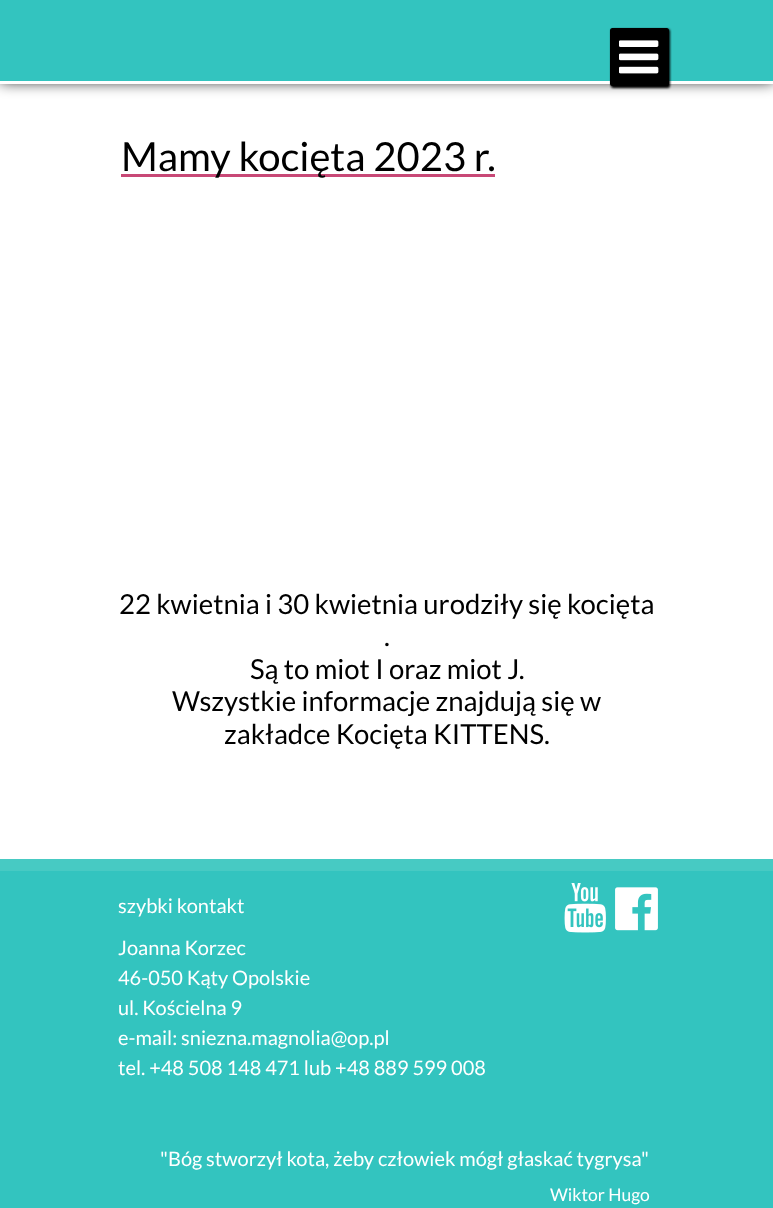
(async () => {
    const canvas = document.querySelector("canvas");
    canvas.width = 773;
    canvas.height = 1208;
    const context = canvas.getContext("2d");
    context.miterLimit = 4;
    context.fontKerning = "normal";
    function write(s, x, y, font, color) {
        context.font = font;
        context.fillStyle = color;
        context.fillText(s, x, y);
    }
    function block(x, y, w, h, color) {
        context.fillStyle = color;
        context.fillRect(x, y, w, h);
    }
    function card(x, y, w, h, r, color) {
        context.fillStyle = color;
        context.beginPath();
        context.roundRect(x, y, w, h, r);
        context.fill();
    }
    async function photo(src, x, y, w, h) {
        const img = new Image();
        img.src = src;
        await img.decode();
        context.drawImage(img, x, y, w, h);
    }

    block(0, 0, 773, 1208, "rgb(255, 255, 255)");
    context.fillStyle = "rgb(0, 0, 0)";
    context.filter = "blur(7.5px)";
    context.beginPath();
    context.rect(0, -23, 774, 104);
    context.fill();
    context.filter = "none";
    block(0, 81, 773, 3, "rgb(255, 255, 255)");
    block(0, 0, 773, 81, "rgb(51, 196, 191)");
    context.fillStyle = "rgb(0, 0, 0)";
    context.filter = "blur(1px)";
    context.beginPath();
    context.roundRect(611, 29, 59, 59, 2.5);
    context.fill();
    context.filter = "none";
    card(610, 28, 59, 58, 2.5, "rgb(0, 0, 0)");
    await photo("media/1.png", 619, 40, 40, 34);
    block(121, 174, 374, 3, "rgb(200, 72, 118)");
    write("Mamy kocięta 2023 r.", 121, 171, "40px Lato", "rgb(0, 0, 0)");
    write("22 kwietnia i 30 kwietnia urodziły się kocięta", 119, 614, "27.5px Lato", "rgb(0, 0, 0)");
    write(".", 384, 646, "27.5px Lato", "rgb(0, 0, 0)");
    write("Są to miot I oraz miot J.", 250, 679, "27.5px Lato", "rgb(0, 0, 0)");
    write("Wszystkie informacje znajdują się w", 172, 711, "27.5px Lato", "rgb(0, 0, 0)");
    write("zakładce Kocięta KITTENS.", 224, 744, "27.5px Lato", "rgb(0, 0, 0)");
    block(0, 871, 773, 337, "rgb(51, 196, 191)");
    block(0, 859, 773, 12, "rgb(71, 202, 195)");
    write("szybki kontakt", 118, 913, "20px Lato", "rgb(255, 255, 255)");
    write("Joanna Korzec", 118, 955, "20px Lato", "rgb(255, 255, 255)");
    write("46-050 Kąty Opolskie", 118, 985, "20px Lato", "rgb(255, 255, 255)");
    write("ul. Kościelna 9", 118, 1015, "20px Lato", "rgb(255, 255, 255)");
    write("e-mail: sniezna.magnolia@op.pl", 118, 1045, "20px Lato", "rgb(255, 255, 255)");
    write("tel. +48 508 148 471 lub +48 889 599 008", 118, 1075, "20px Lato", "rgb(255, 255, 255)");
    await photo("media/2.png", 564, 883, 42, 50);
    await photo("media/3.png", 615, 887, 43, 44);
    write("\"Bóg stworzył kota, żeby człowiek mógł głaskać tygrysa\"", 160, 1166, "20px Lato", "rgb(255, 255, 255)");
    write("Wiktor Hugo", 550, 1201, "17.5px Lato", "rgb(255, 255, 255)");
})();
